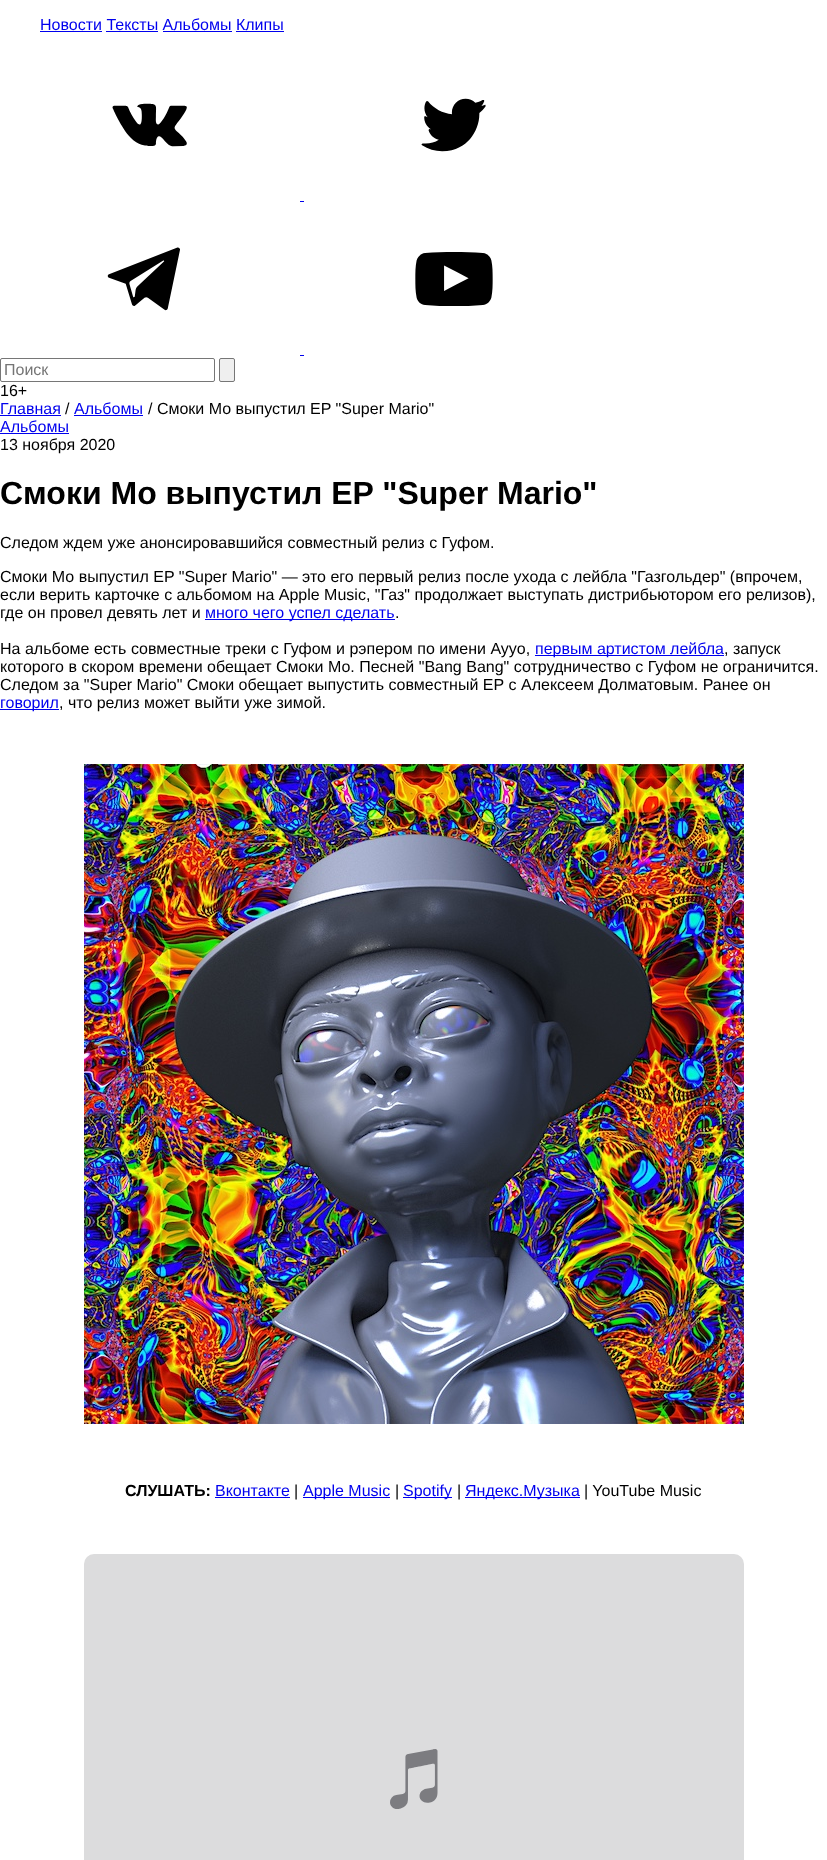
(async () => {
    const canvas = document.querySelector("canvas");
    canvas.width = 827;
    canvas.height = 1860;
    const context = canvas.getContext("2d");
    context.miterLimit = 4;
    context.fontKerning = "normal";
    function write(s, x, y, font, color) {
        context.font = font;
        context.fillStyle = color;
        context.fillText(s, x, y);
    }
    function block(x, y, w, h, color) {
        context.fillStyle = color;
        context.fillRect(x, y, w, h);
    }
    async function photo(src, x, y, w, h) {
        const img = new Image();
        img.src = src;
        await img.decode();
        context.drawImage(img, x, y, w, h);
    }

    block(0, 0, 827, 1860, "rgb(255, 255, 255)");
    write("Новости Тексты Альбомы Клипы", 40, 30, "16px Liberation Sans", "rgb(0, 0, 238)");
    block(40, 31, 62, 1, "rgb(0, 0, 238)");
    block(106, 31, 52, 1, "rgb(0, 0, 238)");
    block(163, 31, 69, 1, "rgb(0, 0, 238)");
    block(236, 31, 48, 1, "rgb(0, 0, 238)");
    await photo("media/1.png", 112, 103, 75, 44);
    await photo("media/2.png", 421, 98, 65, 54);
    block(300, 201, 4, 1, "rgb(0, 0, 238)");
    await photo("media/3.png", 107, 247, 73, 64);
    await photo("media/4.png", 415, 252, 78, 54);
    block(300, 355, 4, 1, "rgb(0, 0, 238)");
    context.beginPath();
    context.roundRect(0.5, 358.5, 214, 23, 1.5);
    context.strokeStyle = "rgb(118, 118, 118)";
    context.stroke();
    write("Поиск", 4, 375, "16px Liberation Sans", "rgb(117, 117, 117)");
    context.fillStyle = "rgb(239, 239, 239)";
    context.beginPath();
    context.roundRect(219.5, 358.5, 15, 23, 1.5);
    context.fill();
    context.stroke();
    write("16+", 0, 396, "16px Liberation Sans", "rgb(0, 0, 0)");
    write("Главная", 0, 414, "16px Liberation Sans", "rgb(0, 0, 238)");
    block(0, 415, 61, 1, "rgb(0, 0, 238)");
    write("/", 65, 414, "16px Liberation Sans", "rgb(0, 0, 0)");
    write("Альбомы", 74, 414, "16px Liberation Sans", "rgb(0, 0, 238)");
    block(74, 415, 69, 1, "rgb(0, 0, 238)");
    write("/ Смоки Мо выпустил EP \"Super Mario\"", 148, 414, "16px Liberation Sans", "rgb(0, 0, 0)");
    write("Альбомы", 0, 432, "16px Liberation Sans", "rgb(0, 0, 238)");
    block(0, 433, 69, 1, "rgb(0, 0, 238)");
    write("13 ноября 2020", 0, 450, "16px Liberation Sans", "rgb(0, 0, 0)");
    write("Смоки Мо выпустил EP \"Super Mario\"", 0, 504, "bold 32px Liberation Sans", "rgb(0, 0, 0)");
    write("Следом ждем уже анонсировавшийся совместный релиз с Гуфом.", 0, 548, "16px Liberation Sans", "rgb(0, 0, 0)");
    write("Смоки Мо выпустил EP \"Super Mario\" — это его первый релиз после ухода с лейбла \"Газгольдер\" (впрочем,", 0, 582, "16px Liberation Sans", "rgb(0, 0, 0)");
    write("если верить карточке с альбомом на Apple Music, \"Газ\" продолжает выступать дистрибьютором его релизов),", 0, 600, "16px Liberation Sans", "rgb(0, 0, 0)");
    write("где он провел девять лет и", 0, 618, "16px Liberation Sans", "rgb(0, 0, 0)");
    block(205, 619, 190, 1, "rgb(0, 0, 238)");
    write("много чего успел сделать", 205, 618, "16px Liberation Sans", "rgb(0, 0, 238)");
    write(".", 395, 618, "16px Liberation Sans", "rgb(0, 0, 0)");
    write("На альбоме есть совместные треки с Гуфом и рэпером по имени Ayyo,", 0, 654, "16px Liberation Sans", "rgb(0, 0, 0)");
    block(535, 655, 189, 1, "rgb(0, 0, 238)");
    write("первым артистом лейбла", 535, 654, "16px Liberation Sans", "rgb(0, 0, 238)");
    write(", запуск", 724, 654, "16px Liberation Sans", "rgb(0, 0, 0)");
    write("которого в скором времени обещает Смоки Мо. Песней \"Bang Bang\" сотрудничество с Гуфом не ограничится.", 0, 672, "16px Liberation Sans", "rgb(0, 0, 0)");
    write("Следом за \"Super Mario\" Смоки обещает выпустить совместный ЕР с Алексеем Долматовым. Ранее он", 0, 690, "16px Liberation Sans", "rgb(0, 0, 0)");
    block(0, 709, 59, 1, "rgb(0, 0, 238)");
    write("говорил", 0, 708, "16px Liberation Sans", "rgb(0, 0, 238)");
    write(", что релиз может выйти уже зимой.", 59, 708, "16px Liberation Sans", "rgb(0, 0, 0)");
    await photo("media/5.png", 84, 764, 660, 660);
    write("СЛУШАТЬ:", 125, 1496, "bold 16px Liberation Sans", "rgb(0, 0, 0)");
    write("Вконтакте", 215, 1496, "16px Liberation Sans", "rgb(0, 0, 238)");
    block(215, 1497, 75, 1, "rgb(0, 0, 238)");
    write("|", 294, 1496, "16px Liberation Sans", "rgb(0, 0, 0)");
    block(303, 1497, 87, 1, "rgb(0, 0, 238)");
    write("Apple Music", 303, 1496, "16px Liberation Sans", "rgb(0, 0, 238)");
    write("|", 395, 1496, "16px Liberation Sans", "rgb(0, 0, 0)");
    block(403, 1497, 49, 1, "rgb(0, 0, 238)");
    write("Spotify", 403, 1496, "16px Liberation Sans", "rgb(0, 0, 238)");
    write("|", 457, 1496, "16px Liberation Sans", "rgb(0, 0, 0)");
    block(465, 1497, 115, 1, "rgb(0, 0, 238)");
    write("Яндекс.Музыка", 465, 1496, "16px Liberation Sans", "rgb(0, 0, 238)");
    write("| YouTube Music", 584, 1496, "16px Liberation Sans", "rgb(0, 0, 0)");
    await photo("media/6.png", 84, 1554, 660, 306);
})();
